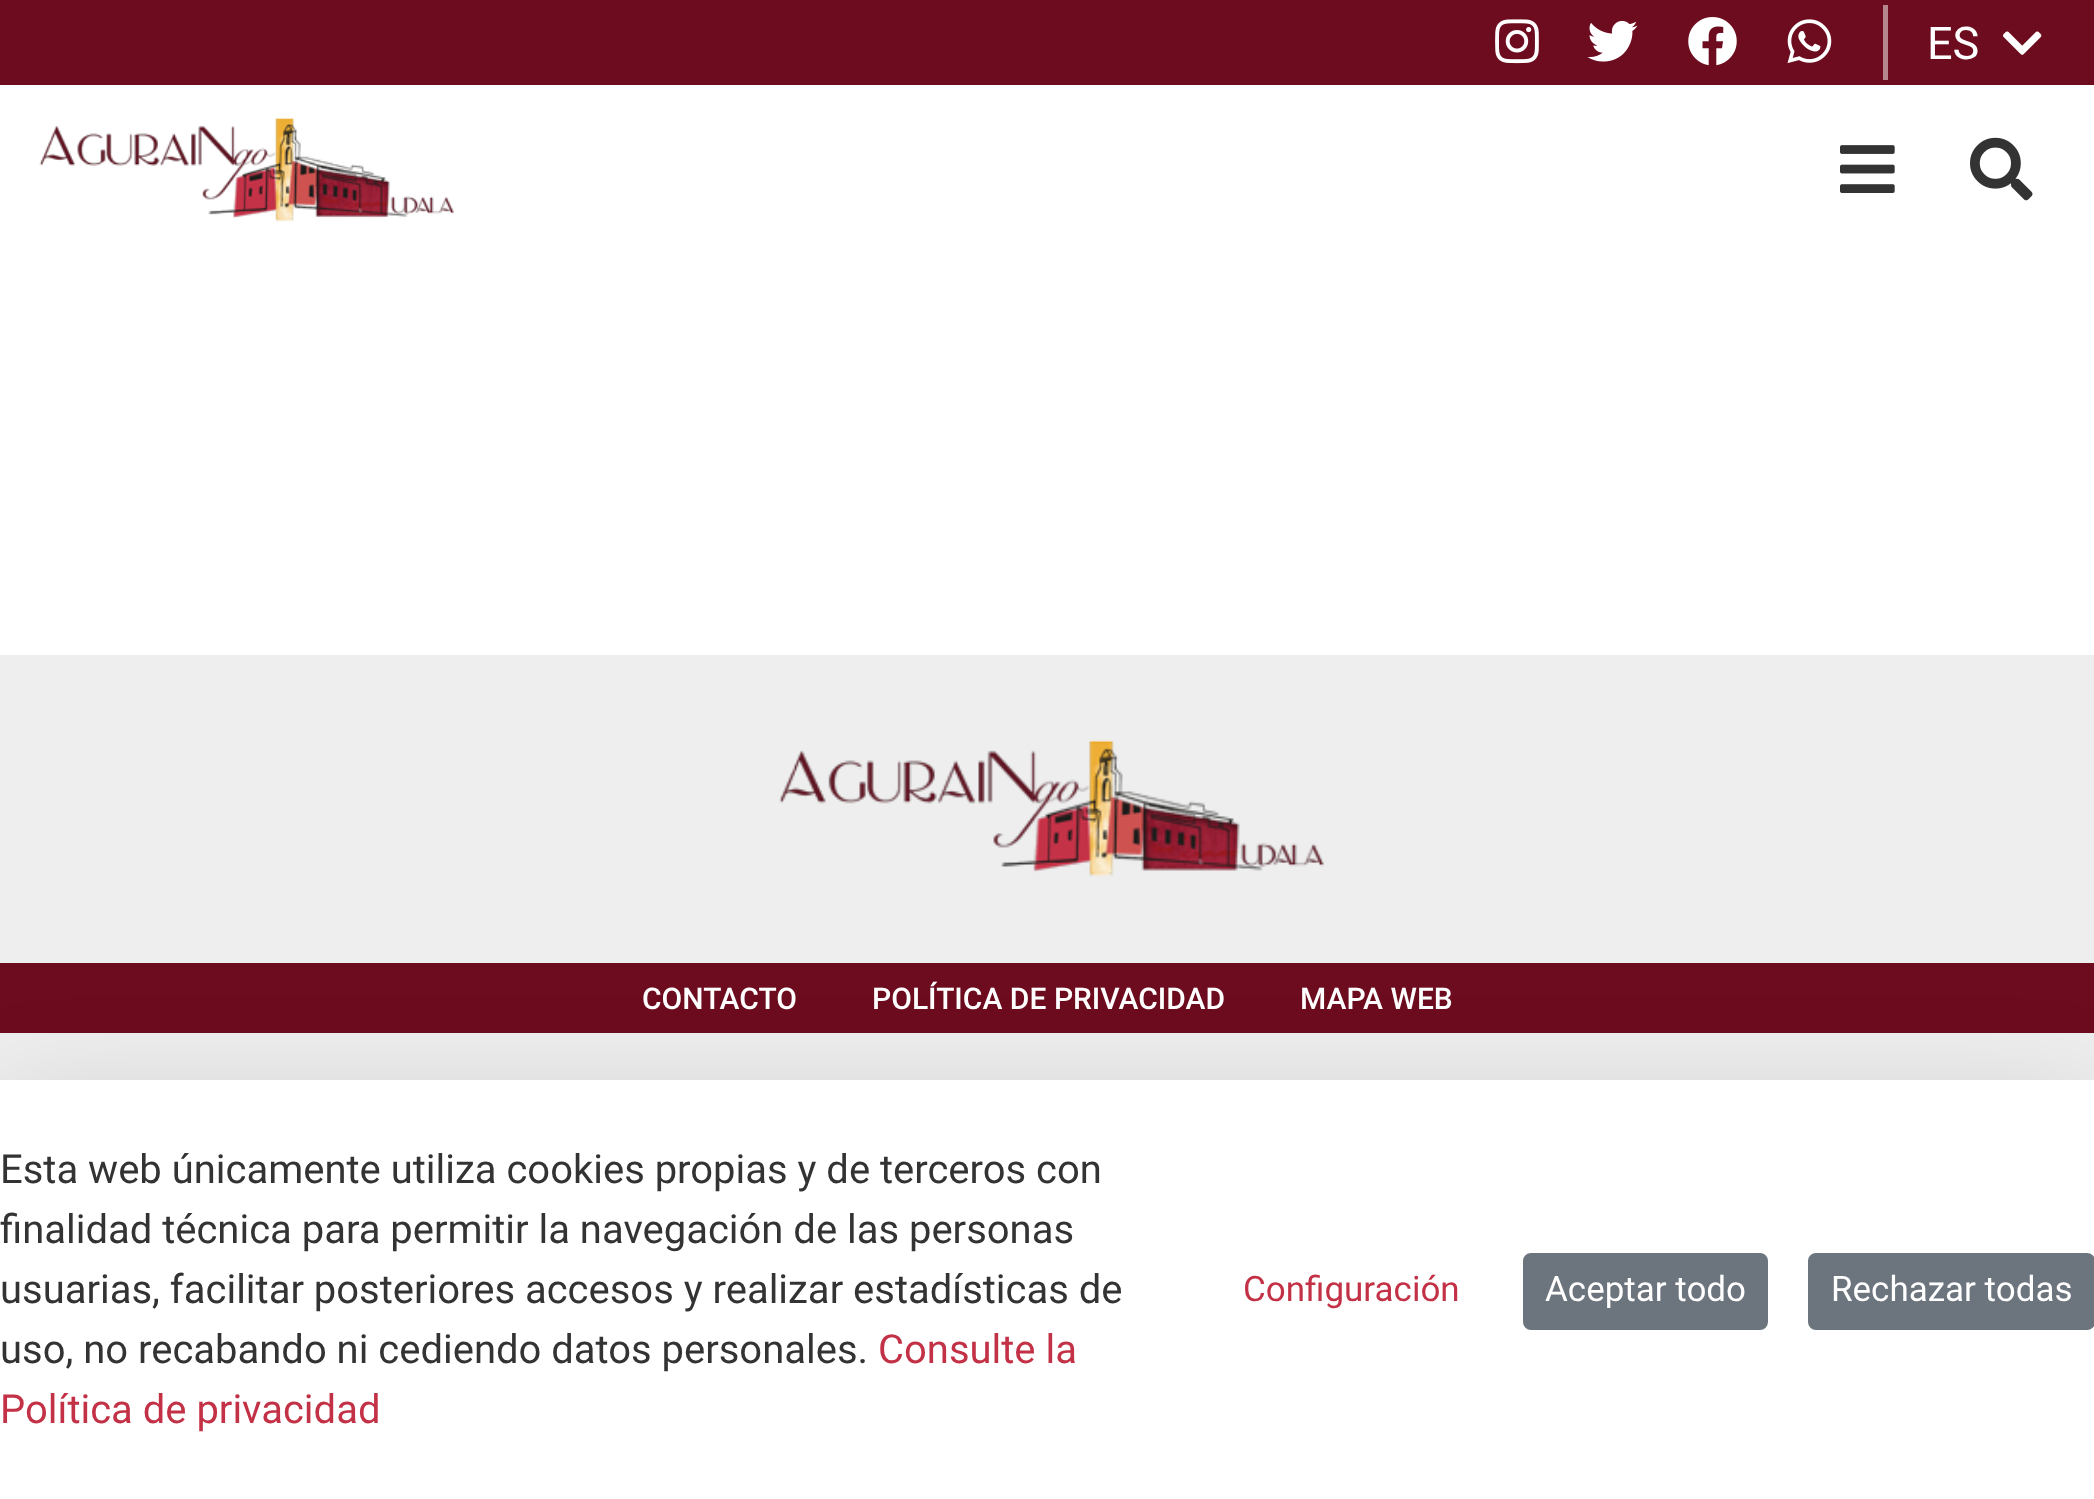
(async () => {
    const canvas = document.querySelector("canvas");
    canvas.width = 2094;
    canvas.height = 1499;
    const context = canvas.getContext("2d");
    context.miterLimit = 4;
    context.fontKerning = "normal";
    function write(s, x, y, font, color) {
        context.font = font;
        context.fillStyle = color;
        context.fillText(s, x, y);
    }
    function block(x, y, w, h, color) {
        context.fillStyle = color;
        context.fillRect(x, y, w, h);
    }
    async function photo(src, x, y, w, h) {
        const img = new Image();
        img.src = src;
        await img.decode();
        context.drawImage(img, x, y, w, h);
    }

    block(0, 0, 2094, 1499, "rgb(255, 255, 255)");
    block(0, 0, 2094, 85, "rgb(109, 12, 31)");
    block(1883, 5, 5, 75, "rgb(182, 134, 143)");
    await photo("media/1.png", 1495, 19, 44, 45);
    await photo("media/2.png", 1587, 20, 51, 42);
    await photo("media/3.png", 1688, 17, 49, 49);
    await photo("media/4.png", 1787, 19, 45, 45);
    write("ES", 1927, 59, "45px Roboto", "rgb(255, 255, 255)");
    await photo("media/5.png", 2003, 31, 39, 24);
    await photo("media/6.png", 39, 117, 415, 105);
    await photo("media/7.png", 1840, 145, 55, 48);
    await photo("media/8.png", 1970, 137, 63, 64);
    block(0, 655, 2094, 425, "rgb(238, 238, 238)");
    await photo("media/9.png", 779, 739, 545, 138);
    block(0, 963, 2094, 70, "rgb(109, 12, 31)");
    write("CONTACTO", 642, 1009, "500 30px Roboto", "rgb(255, 255, 255)");
    write("POLÍTICA DE PRIVACIDAD", 872, 1009, "500 30px Roboto", "rgb(255, 255, 255)");
    write("MAPA WEB", 1300, 1009, "500 30px Roboto", "rgb(255, 255, 255)");
    context.fillStyle = "rgba(0, 0, 0, 0.18)";
    context.filter = "blur(60px)";
    context.beginPath();
    context.rect(0, 1120, 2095, 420);
    context.fill();
    context.filter = "none";
    block(0, 1080, 2094, 419, "rgb(255, 255, 255)");
    write("Esta web únicamente utiliza cookies propias y de terceros con", 0, 1183, "40px Roboto", "rgb(51, 51, 51)");
    write("finalidad técnica para permitir la navegación de las personas", 0, 1243, "40px Roboto", "rgb(51, 51, 51)");
    write("usuarias, facilitar posteriores accesos y realizar estadísticas de", 0, 1303, "40px Roboto", "rgb(51, 51, 51)");
    write("uso, no recabando ni cediendo datos personales.", 0, 1363, "40px Roboto", "rgb(51, 51, 51)");
    write("Consulte la", 878, 1363, "40px Roboto", "rgb(195, 49, 70)");
    write("Política de privacidad", 0, 1423, "40px Roboto", "rgb(195, 49, 70)");
    write("Configuración", 1243, 1301, "35px Roboto", "rgb(195, 49, 70)");
    context.fillStyle = "rgb(108, 117, 125)";
    context.beginPath();
    context.roundRect(1524.5, 1254.5, 242, 74, 6.5);
    context.fill();
    context.strokeStyle = "rgb(108, 117, 125)";
    context.lineWidth = 3;
    context.stroke();
    write("Aceptar todo", 1545, 1301, "35px Roboto", "rgb(255, 255, 255)");
    context.fillStyle = "rgb(108, 117, 125)";
    context.beginPath();
    context.roundRect(1809.5, 1254.5, 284, 74, 6.5);
    context.fill();
    context.stroke();
    write("Rechazar todas", 1831, 1301, "35px Roboto", "rgb(255, 255, 255)");
})();
